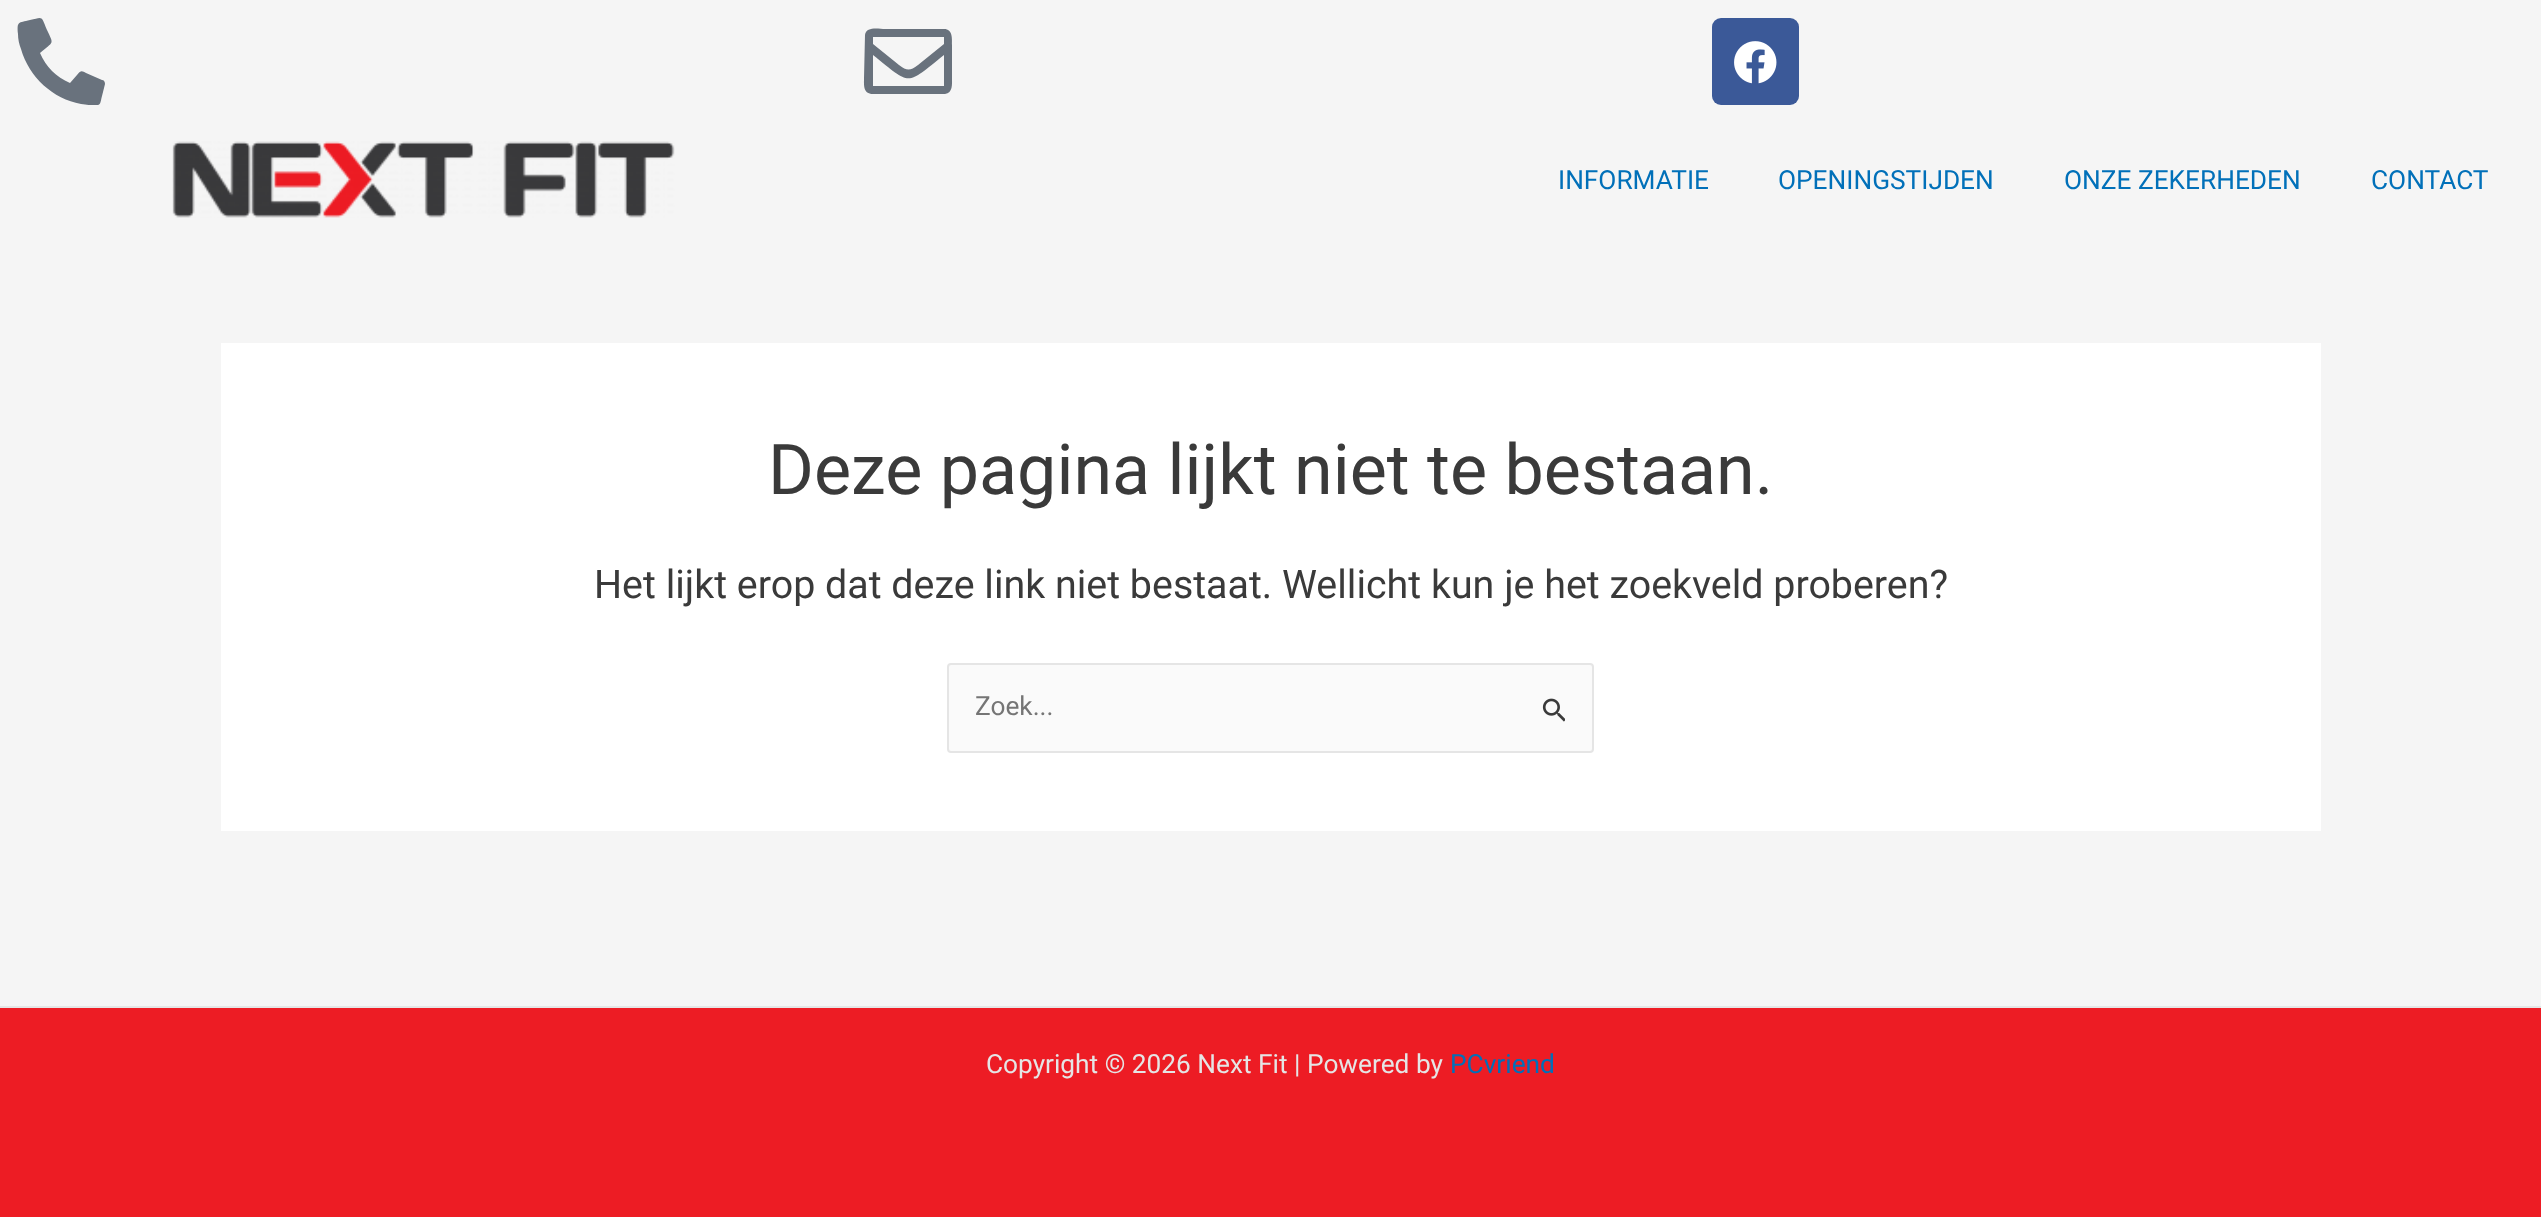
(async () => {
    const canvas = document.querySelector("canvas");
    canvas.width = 2541;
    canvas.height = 1217;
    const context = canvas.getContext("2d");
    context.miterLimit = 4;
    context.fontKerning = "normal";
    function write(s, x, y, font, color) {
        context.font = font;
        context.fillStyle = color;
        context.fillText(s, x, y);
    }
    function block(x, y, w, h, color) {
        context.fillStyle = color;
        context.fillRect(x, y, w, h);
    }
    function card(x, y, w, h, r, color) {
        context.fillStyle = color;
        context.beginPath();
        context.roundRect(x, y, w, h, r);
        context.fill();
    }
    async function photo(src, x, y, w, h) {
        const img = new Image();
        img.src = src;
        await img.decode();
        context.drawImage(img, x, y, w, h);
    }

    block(0, 0, 2541, 1217, "rgb(245, 245, 245)");
    context.fillStyle = "rgb(105, 114, 125)";
    context.beginPath();
    context.moveTo(102, 80);
    context.bezierCurveTo(104, 80, 105, 82, 105, 84);
    context.lineTo(102, 96);
    context.bezierCurveTo(101, 99, 101, 106, 97, 105);
    context.bezierCurveTo(90, 105, 87, 105, 81, 104);
    context.bezierCurveTo(53, 99, 29, 77, 21, 49);
    context.bezierCurveTo(19, 44, 18, 39, 18, 34);
    context.bezierCurveTo(17, 21, 18, 23, 30, 20);
    context.bezierCurveTo(43, 17, 41, 15, 47, 30);
    context.bezierCurveTo(54, 45, 54, 41, 40, 53);
    context.bezierCurveTo(46, 67, 56, 77, 70, 83);
    context.lineTo(77, 75);
    context.bezierCurveTo(81, 70, 82, 71, 86, 73);
    context.closePath();
    context.fill();
    context.beginPath();
    context.moveTo(944, 29);
    context.bezierCurveTo(953, 29, 952, 39, 952, 45);
    context.lineTo(952, 78);
    context.bezierCurveTo(952, 84, 953, 93, 945, 94);
    context.lineTo(873, 94);
    context.bezierCurveTo(863, 94, 864, 85, 864, 78);
    context.lineTo(865, 35);
    context.bezierCurveTo(866, 26, 879, 29, 885, 29);
    context.closePath();
    context.moveTo(944, 37);
    context.lineTo(873, 37);
    context.lineTo(873, 44);
    context.lineTo(899, 65);
    context.bezierCurveTo(907, 71, 910, 71, 918, 65);
    context.lineTo(944, 44);
    context.closePath();
    context.moveTo(873, 86);
    context.lineTo(944, 86);
    context.lineTo(944, 55);
    context.bezierCurveTo(905, 86, 912, 86, 873, 55);
    context.closePath();
    context.fill();
    card(1712, 18, 87, 87, 9, "rgb(59, 89, 152)");
    await photo("media/1.png", 1734, 41, 43, 43);
    await photo("media/2.png", 172, 141, 503, 77);
    write("INFORMATIE", 1558, 189, "26.25px Roboto", "rgb(1, 112, 185)");
    write("OPENINGSTIJDEN", 1778, 189, "26.25px Roboto", "rgb(1, 112, 185)");
    write("ONZE ZEKERHEDEN", 2064, 189, "26.25px Roboto", "rgb(1, 112, 185)");
    write("CONTACT", 2371, 189, "26.25px Roboto", "rgb(1, 112, 185)");
    block(221, 343, 2100, 488, "rgb(255, 255, 255)");
    write("Deze pagina lijkt niet te bestaan.", 768, 494, "70px Roboto", "rgb(58, 58, 58)");
    write("Het lijkt erop dat deze link niet bestaat. Wellicht kun je het zoekveld proberen?", 594, 598, "39.4px Roboto", "rgb(58, 58, 58)");
    context.fillStyle = "rgb(250, 250, 250)";
    context.beginPath();
    context.roundRect(948, 664, 645, 88, 3);
    context.fill();
    context.strokeStyle = "rgb(229, 229, 229)";
    context.lineWidth = 2;
    context.stroke();
    write("Zoek...", 975, 715, "26.25px Roboto", "rgb(117, 117, 117)");
    await photo("media/3.png", 1542, 698, 23, 24);
    block(0, 1008, 2541, 209, "rgb(237, 28, 36)");
    block(0, 1006, 2541, 2, "rgb(229, 229, 229)");
    write("Copyright © 2026 Next Fit | Powered by", 986, 1073, "26.25px Roboto", "rgb(229, 229, 229)");
    write("PCvriend", 1450, 1073, "26.25px Roboto", "rgb(1, 112, 185)");
})();
